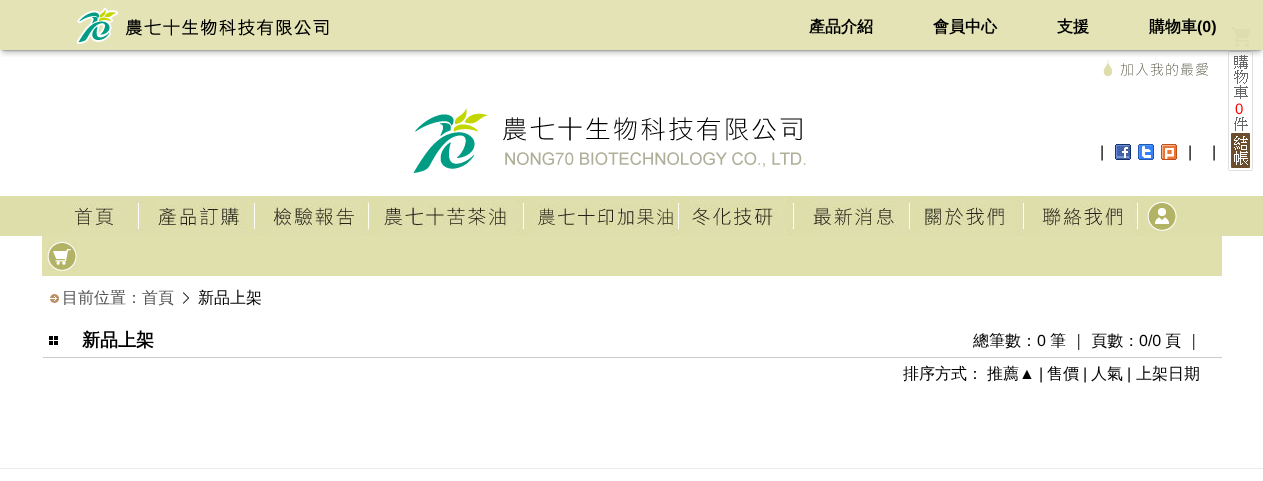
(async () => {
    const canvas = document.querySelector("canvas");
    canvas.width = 1263;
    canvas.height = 481;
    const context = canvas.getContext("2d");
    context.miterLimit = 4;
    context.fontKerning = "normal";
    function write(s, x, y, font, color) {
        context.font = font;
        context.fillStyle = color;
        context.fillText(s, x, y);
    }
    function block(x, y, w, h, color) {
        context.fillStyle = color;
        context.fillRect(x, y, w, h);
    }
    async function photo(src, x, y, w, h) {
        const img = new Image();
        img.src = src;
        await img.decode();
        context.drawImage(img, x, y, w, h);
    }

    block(0, 0, 1263, 481, "rgb(255, 255, 255)");
    block(0, 0, 1263, 50, "rgb(227, 227, 181)");
    await photo("media/2.png", 1228, 51, 25, 120);
    await photo("media/3.png", 1231, 27, 20, 20);
    await photo("media/4.png", 1234, 55, 14, 44);
    await photo("media/6.png", 1103, 59, 105, 18);
    context.save();
    context.beginPath();
    context.rect(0, 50, 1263, 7);
    context.clip();
    context.fillStyle = "rgba(51, 51, 51, 0.4)";
    context.filter = "blur(3px)";
    context.beginPath();
    context.rect(2, 6, 1259, 46);
    context.fill();
    context.filter = "none";
    context.restore();
    context.save();
    context.beginPath();
    context.rect(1, 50, 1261, 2);
    context.clip();
    context.fillStyle = "rgba(51, 51, 51, 0.6)";
    context.filter = "blur(1px)";
    context.beginPath();
    context.rect(2, 4, 1259, 46);
    context.fill();
    context.filter = "none";
    context.restore();
    await photo("media/1.png", 76, 7, 253, 37);
    write("產品介紹", 809, 32, "bold 16px WenQuanYi Zen Hei", "rgb(0, 0, 0)");
    write("會員中心", 933, 32, "bold 16px WenQuanYi Zen Hei", "rgb(0, 0, 0)");
    write("支援", 1057, 32, "bold 16px WenQuanYi Zen Hei", "rgb(0, 0, 0)");
    write("購物車", 1149, 32, "bold 16px WenQuanYi Zen Hei", "rgb(0, 0, 0)");
    write("(0)", 1197, 32, "bold 16px Liberation Sans", "rgb(0, 0, 0)");
    write("0", 1235, 114, "15px Liberation Sans", "rgb(255, 0, 0)");
    await photo("media/5.png", 1231, 133, 19, 35);
    block(0, 196, 1263, 40, "rgb(222, 222, 171)");
    await photo("media/7.png", 413, 108, 393, 65);
    write("|", 1100, 157, "16px Liberation Sans", "rgb(0, 0, 0)");
    await photo("media/8.png", 1115, 144, 16, 16);
    await photo("media/9.png", 1138, 144, 16, 16);
    await photo("media/10.png", 1161, 144, 16, 16);
    write("|", 1188, 157, "16px Liberation Sans", "rgb(0, 0, 0)");
    write("|", 1212, 157, "16px Liberation Sans", "rgb(0, 0, 0)");
    block(42, 236, 1180, 40, "rgb(224, 224, 173)");
    await photo("media/11.png", 70, 196, 72, 40);
    await photo("media/12.png", 158, 196, 99, 40);
    await photo("media/13.png", 273, 196, 96, 40);
    await photo("media/14.png", 380, 196, 144, 40);
    await photo("media/15.png", 535, 196, 144, 40);
    await photo("media/16.png", 690, 196, 104, 40);
    await photo("media/17.png", 813, 196, 99, 40);
    await photo("media/18.png", 920, 196, 104, 40);
    await photo("media/19.png", 1041, 196, 98, 40);
    await photo("media/20.png", 1147, 202, 30, 29);
    await photo("media/21.png", 47, 242, 30, 29);
    await photo("media/22.png", 50, 294, 9, 9);
    write("目前位置：首頁", 62, 303, "500 16px WenQuanYi Zen Hei", "rgb(85, 85, 85)");
    await photo("media/23.png", 183, 292, 6, 12);
    write("新品上架", 198, 303, "500 16px WenQuanYi Zen Hei", "rgb(0, 0, 0)");
    await photo("media/24.png", 43, 336, 1179, 22);
    write("新品上架", 82, 346, "bold 18px WenQuanYi Zen Hei", "rgb(0, 0, 0)");
    write("總筆數：", 973, 346, "500 16px WenQuanYi Zen Hei", "rgb(0, 0, 0)");
    write("0", 1037, 346, "16px Liberation Sans", "rgb(0, 0, 0)");
    write("筆 ｜ 頁數：", 1050, 346, "500 16px WenQuanYi Zen Hei", "rgb(0, 0, 0)");
    write("0/0", 1139, 346, "16px Liberation Sans", "rgb(0, 0, 0)");
    write("頁 ｜", 1165, 346, "500 16px WenQuanYi Zen Hei", "rgb(0, 0, 0)");
    write("排序方式：", 903, 379, "500 16px WenQuanYi Zen Hei", "rgb(0, 0, 0)");
    write("推薦", 987, 379, "500 16px WenQuanYi Zen Hei", "rgb(0, 0, 0)");
    write("▲", 1019, 379, "16px Liberation Sans", "rgb(0, 0, 0)");
    write("|", 1039, 379, "16px Liberation Sans", "rgb(0, 0, 0)");
    write("售價", 1047, 379, "500 16px WenQuanYi Zen Hei", "rgb(0, 0, 0)");
    write("|", 1083, 379, "16px Liberation Sans", "rgb(0, 0, 0)");
    write("人氣", 1091, 379, "500 16px WenQuanYi Zen Hei", "rgb(0, 0, 0)");
    write("|", 1127, 379, "16px Liberation Sans", "rgb(0, 0, 0)");
    write("上架日期", 1136, 379, "500 16px WenQuanYi Zen Hei", "rgb(0, 0, 0)");
    block(0, 468, 1263, 1, "rgb(235, 235, 235)");
})();
